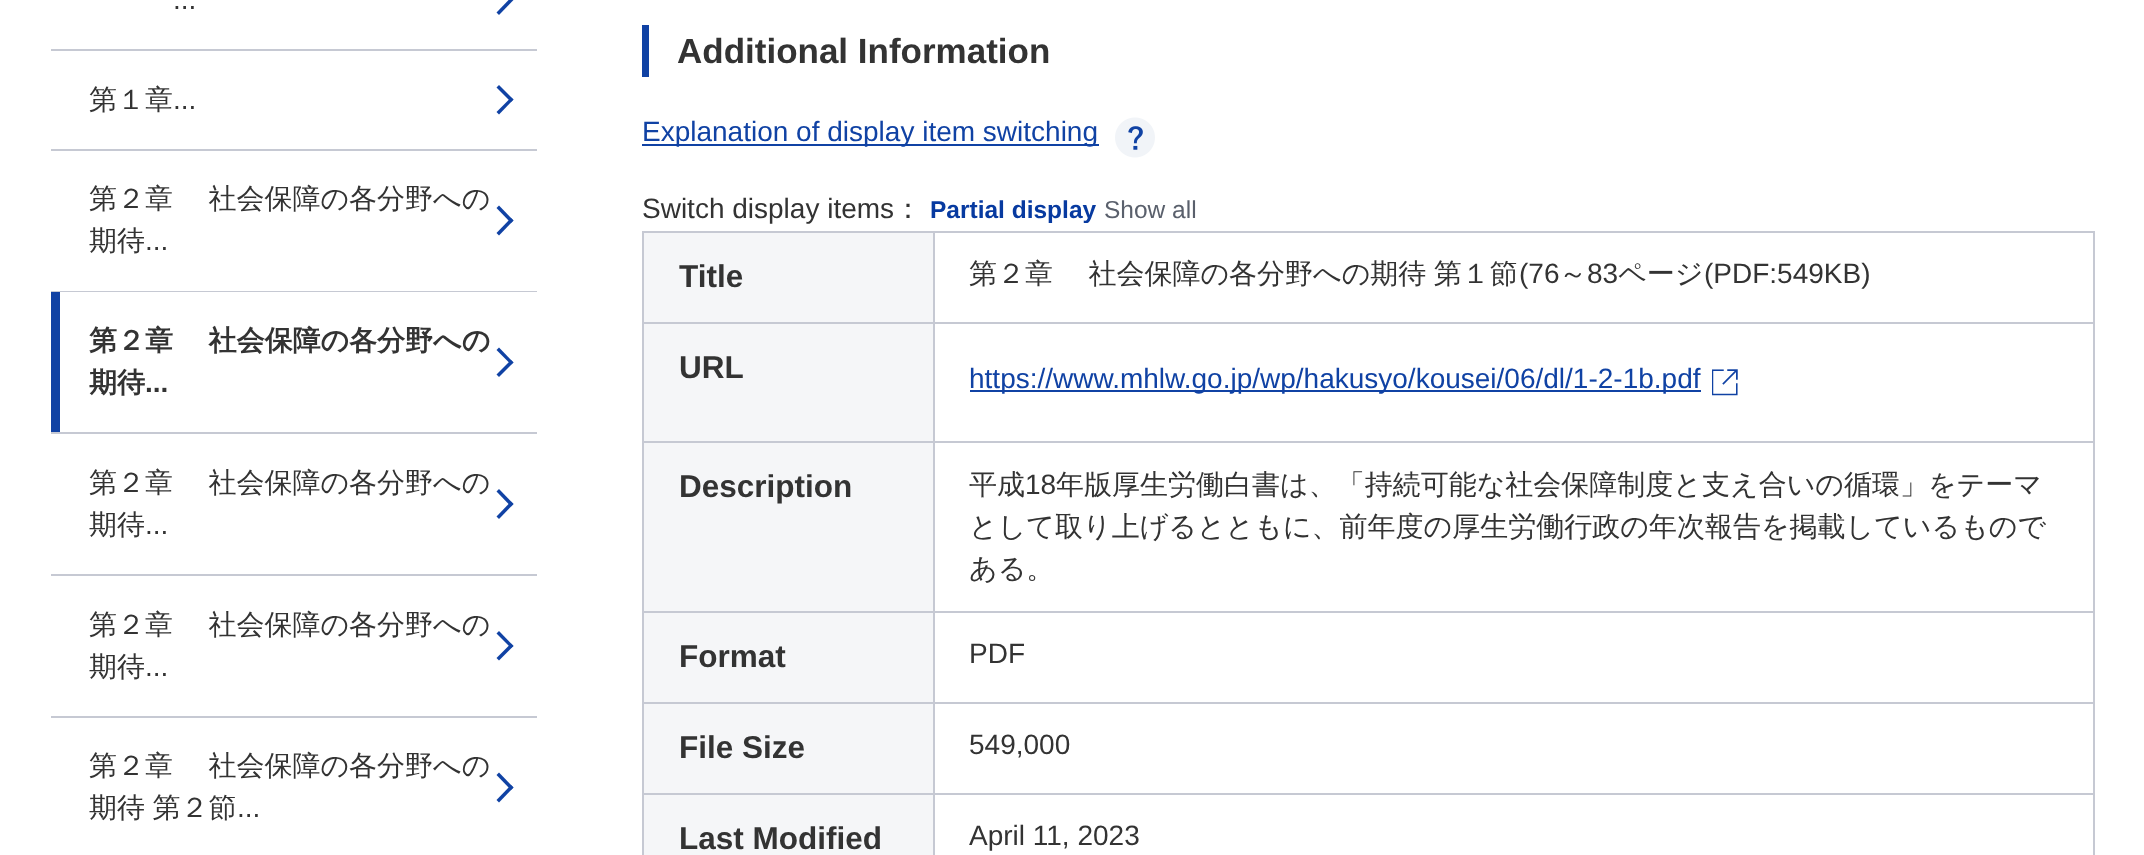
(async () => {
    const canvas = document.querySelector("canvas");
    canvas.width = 2144;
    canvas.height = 855;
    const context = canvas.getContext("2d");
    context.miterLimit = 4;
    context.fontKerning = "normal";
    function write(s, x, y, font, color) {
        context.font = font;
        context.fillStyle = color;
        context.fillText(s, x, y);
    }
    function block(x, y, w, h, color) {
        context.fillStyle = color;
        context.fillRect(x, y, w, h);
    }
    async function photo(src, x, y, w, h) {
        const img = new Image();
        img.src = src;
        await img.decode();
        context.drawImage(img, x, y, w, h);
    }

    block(0, 0, 2144, 855, "rgb(255, 255, 255)");
    block(51, 49, 486, 2, "rgb(198, 201, 211)");
    write("...", 173, 9, "28px Liberation Sans", "rgb(51, 51, 51)");
    context.fillStyle = "rgb(16, 66, 164)";
    context.beginPath();
    context.moveTo(496.5, 12.5);
    context.lineTo(511, -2.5);
    context.lineTo(513.5, 0);
    context.lineTo(499, 15);
    context.closePath();
    context.fill();
    block(51, 149, 486, 2, "rgb(198, 201, 211)");
    write("第１章", 89, 109, "500 28px WenQuanYi Zen Hei", "rgb(51, 51, 51)");
    write("...", 173, 109, "28px Liberation Sans", "rgb(51, 51, 51)");
    context.fillStyle = "rgb(16, 66, 164)";
    context.beginPath();
    context.moveTo(496.5, 87.5);
    context.lineTo(499, 85);
    context.lineTo(513.5, 99.5);
    context.lineTo(511, 102);
    context.closePath();
    context.fill();
    context.beginPath();
    context.moveTo(496.5, 112);
    context.lineTo(511, 97.5);
    context.lineTo(513.5, 99.5);
    context.lineTo(499, 114.5);
    context.closePath();
    context.fill();
    block(51, 291, 486, 1, "rgb(198, 201, 211)");
    context.wordSpacing = "-1px";
    write("第２章 　社会保障の各分野への", 89, 208, "500 28px WenQuanYi Zen Hei", "rgb(51, 51, 51)");
    context.fillStyle = "rgb(16, 66, 164)";
    context.beginPath();
    context.moveTo(496.5, 208);
    context.lineTo(499, 205.5);
    context.lineTo(513.5, 220.5);
    context.lineTo(511, 223);
    context.closePath();
    context.fill();
    context.beginPath();
    context.moveTo(496.5, 233);
    context.lineTo(511, 218);
    context.lineTo(513.5, 220.5);
    context.lineTo(499, 235.5);
    context.closePath();
    context.fill();
    context.wordSpacing = "0px";
    write("期待", 89, 250, "500 28px WenQuanYi Zen Hei", "rgb(51, 51, 51)");
    write("...", 145, 250, "28px Liberation Sans", "rgb(51, 51, 51)");
    block(51, 432, 486, 2, "rgb(198, 201, 211)");
    block(51, 292, 9, 140, "rgb(16, 66, 164)");
    context.wordSpacing = "-1px";
    write("第２章 　社会保障の各分野への", 89, 350, "bold 28px WenQuanYi Zen Hei", "rgb(51, 51, 51)");
    context.fillStyle = "rgb(16, 66, 164)";
    context.beginPath();
    context.moveTo(496.5, 350);
    context.lineTo(499, 347.5);
    context.lineTo(513.5, 362.5);
    context.lineTo(511, 364.5);
    context.closePath();
    context.fill();
    context.beginPath();
    context.moveTo(496.5, 374.5);
    context.lineTo(511, 360);
    context.lineTo(513.5, 362.5);
    context.lineTo(499, 377);
    context.closePath();
    context.fill();
    context.wordSpacing = "0px";
    write("期待", 89, 392, "bold 28px WenQuanYi Zen Hei", "rgb(51, 51, 51)");
    write("...", 145, 392, "bold 28px Liberation Sans", "rgb(51, 51, 51)");
    block(51, 574, 486, 2, "rgb(198, 201, 211)");
    context.wordSpacing = "-1px";
    write("第２章 　社会保障の各分野への", 89, 492, "500 28px WenQuanYi Zen Hei", "rgb(51, 51, 51)");
    context.fillStyle = "rgb(16, 66, 164)";
    context.beginPath();
    context.moveTo(496.5, 491.5);
    context.lineTo(499, 489);
    context.lineTo(513.5, 504);
    context.lineTo(511, 506.5);
    context.closePath();
    context.fill();
    context.beginPath();
    context.moveTo(496.5, 516.5);
    context.lineTo(511, 501.5);
    context.lineTo(513.5, 504);
    context.lineTo(499, 519);
    context.closePath();
    context.fill();
    context.wordSpacing = "0px";
    write("期待", 89, 534, "500 28px WenQuanYi Zen Hei", "rgb(51, 51, 51)");
    write("...", 145, 534, "28px Liberation Sans", "rgb(51, 51, 51)");
    block(51, 716, 486, 2, "rgb(198, 201, 211)");
    context.wordSpacing = "-1px";
    write("第２章 　社会保障の各分野への", 89, 634, "500 28px WenQuanYi Zen Hei", "rgb(51, 51, 51)");
    context.fillStyle = "rgb(16, 66, 164)";
    context.beginPath();
    context.moveTo(496.5, 633.5);
    context.lineTo(499, 631);
    context.lineTo(513.5, 646);
    context.lineTo(511, 648);
    context.closePath();
    context.fill();
    context.beginPath();
    context.moveTo(496.5, 658);
    context.lineTo(511, 643.5);
    context.lineTo(513.5, 646);
    context.lineTo(499, 660.5);
    context.closePath();
    context.fill();
    context.wordSpacing = "0px";
    write("期待", 89, 676, "500 28px WenQuanYi Zen Hei", "rgb(51, 51, 51)");
    write("...", 145, 676, "28px Liberation Sans", "rgb(51, 51, 51)");
    context.wordSpacing = "-1px";
    write("第２章 　社会保障の各分野への", 89, 775, "500 28px WenQuanYi Zen Hei", "rgb(51, 51, 51)");
    context.fillStyle = "rgb(16, 66, 164)";
    context.beginPath();
    context.moveTo(496.5, 775);
    context.lineTo(499, 772.5);
    context.lineTo(513.5, 787.5);
    context.lineTo(511, 790);
    context.closePath();
    context.fill();
    context.beginPath();
    context.moveTo(496.5, 800);
    context.lineTo(511, 785);
    context.lineTo(513.5, 787.5);
    context.lineTo(499, 802.5);
    context.closePath();
    context.fill();
    write("期待 第２節", 89, 817, "500 28px WenQuanYi Zen Hei", "rgb(51, 51, 51)");
    context.wordSpacing = "0px";
    write("...", 237, 817, "28px Liberation Sans", "rgb(51, 51, 51)");
    block(642, 25, 7, 52, "rgb(16, 66, 164)");
    write("Additional Information", 677, 63, "bold 35px Liberation Sans", "rgb(51, 51, 51)");
    block(642, 144, 457, 2, "rgb(16, 66, 164)");
    write("Explanation of display item switching", 642, 141, "28px Liberation Sans", "rgb(16, 66, 164)");
    await photo("media/1.png", 1115, 117, 40, 41);
    write("Switch display items", 642, 218, "28px Liberation Sans", "rgb(51, 51, 51)");
    write("：", 894, 218, "500 28px WenQuanYi Zen Hei", "rgb(51, 51, 51)");
    write("Partial display", 930, 218, "bold 24.5px Liberation Sans", "rgb(7, 58, 160)");
    write("Show all", 1104, 218, "24.5px Liberation Sans", "rgb(90, 96, 108)");
    block(644, 233, 289, 89, "rgb(245, 246, 248)");
    block(933, 231, 1162, 2, "rgb(198, 201, 211)");
    block(933, 322, 1162, 2, "rgb(198, 201, 211)");
    block(933, 441, 1162, 2, "rgb(198, 201, 211)");
    block(933, 611, 1162, 2, "rgb(198, 201, 211)");
    block(933, 702, 1162, 2, "rgb(198, 201, 211)");
    block(933, 793, 1162, 2, "rgb(198, 201, 211)");
    block(933, 793, 2, 62, "rgb(198, 201, 211)");
    block(642, 793, 293, 2, "rgb(198, 201, 211)");
    block(933, 702, 2, 93, "rgb(198, 201, 211)");
    block(642, 702, 293, 2, "rgb(198, 201, 211)");
    block(933, 611, 2, 93, "rgb(198, 201, 211)");
    block(642, 611, 293, 2, "rgb(198, 201, 211)");
    block(933, 441, 2, 172, "rgb(198, 201, 211)");
    block(642, 441, 293, 2, "rgb(198, 201, 211)");
    block(933, 322, 2, 121, "rgb(198, 201, 211)");
    block(642, 322, 293, 2, "rgb(198, 201, 211)");
    block(933, 231, 2, 93, "rgb(198, 201, 211)");
    block(642, 231, 293, 2, "rgb(198, 201, 211)");
    block(642, 793, 2, 62, "rgb(198, 201, 211)");
    block(642, 702, 2, 93, "rgb(198, 201, 211)");
    block(642, 611, 2, 93, "rgb(198, 201, 211)");
    block(642, 441, 2, 172, "rgb(198, 201, 211)");
    block(642, 322, 2, 121, "rgb(198, 201, 211)");
    block(642, 231, 2, 93, "rgb(198, 201, 211)");
    write("Title", 679, 287, "bold 31.5px Liberation Sans", "rgb(51, 51, 51)");
    block(2093, 793, 2, 62, "rgb(198, 201, 211)");
    block(2093, 702, 2, 93, "rgb(198, 201, 211)");
    block(2093, 611, 2, 93, "rgb(198, 201, 211)");
    block(2093, 441, 2, 172, "rgb(198, 201, 211)");
    block(2093, 322, 2, 121, "rgb(198, 201, 211)");
    block(2093, 231, 2, 93, "rgb(198, 201, 211)");
    context.wordSpacing = "-1px";
    write("第２章 　社会保障の各分野への期待 第１節", 969, 283, "500 28px WenQuanYi Zen Hei", "rgb(51, 51, 51)");
    context.wordSpacing = "0px";
    write("(76", 1519, 283, "28px Liberation Sans", "rgb(51, 51, 51)");
    write("～", 1559, 283, "500 28px WenQuanYi Zen Hei", "rgb(51, 51, 51)");
    write("83", 1587, 283, "28px Liberation Sans", "rgb(51, 51, 51)");
    write("ページ", 1618, 283, "500 28px WenQuanYi Zen Hei", "rgb(51, 51, 51)");
    write("(PDF:549KB)", 1704, 283, "28px Liberation Sans", "rgb(51, 51, 51)");
    block(644, 324, 289, 117, "rgb(245, 246, 248)");
    write("URL", 679, 378, "bold 31.5px Liberation Sans", "rgb(51, 51, 51)");
    block(970, 390, 731, 2, "rgb(16, 66, 164)");
    write("https://www.mhlw.go.jp/wp/hakusyo/kousei/06/dl/1-2-1b.pdf", 969, 388, "28px Liberation Sans", "rgb(16, 66, 164)");
    await photo("media/2.png", 1712, 369, 26, 27);
    block(644, 443, 289, 168, "rgb(245, 246, 248)");
    write("Description", 679, 497, "bold 31.5px Liberation Sans", "rgb(51, 51, 51)");
    write("平成", 969, 494, "500 28px WenQuanYi Zen Hei", "rgb(51, 51, 51)");
    write("18", 1025, 494, "28px Liberation Sans", "rgb(51, 51, 51)");
    write("年版厚生労働白書は、「持続可能な社会保障制度と支え合いの循環」をテーマ", 1056, 494, "500 28px WenQuanYi Zen Hei", "rgb(51, 51, 51)");
    write("として取り上げるとともに、前年度の厚生労働行政の年次報告を掲載しているもので", 969, 536, "500 28px WenQuanYi Zen Hei", "rgb(51, 51, 51)");
    write("ある。", 969, 578, "500 28px WenQuanYi Zen Hei", "rgb(51, 51, 51)");
    block(644, 613, 289, 89, "rgb(245, 246, 248)");
    write("Format", 679, 667, "bold 31.5px Liberation Sans", "rgb(51, 51, 51)");
    write("PDF", 969, 663, "28px Liberation Sans", "rgb(51, 51, 51)");
    block(644, 704, 289, 89, "rgb(245, 246, 248)");
    write("File Size", 679, 758, "bold 31.5px Liberation Sans", "rgb(51, 51, 51)");
    write("549,000", 969, 754, "28px Liberation Sans", "rgb(51, 51, 51)");
    block(644, 795, 289, 60, "rgb(245, 246, 248)");
    write("Last Modified", 679, 849, "bold 31.5px Liberation Sans", "rgb(51, 51, 51)");
    write("April 11, 2023", 969, 845, "28px Liberation Sans", "rgb(51, 51, 51)");
})();
